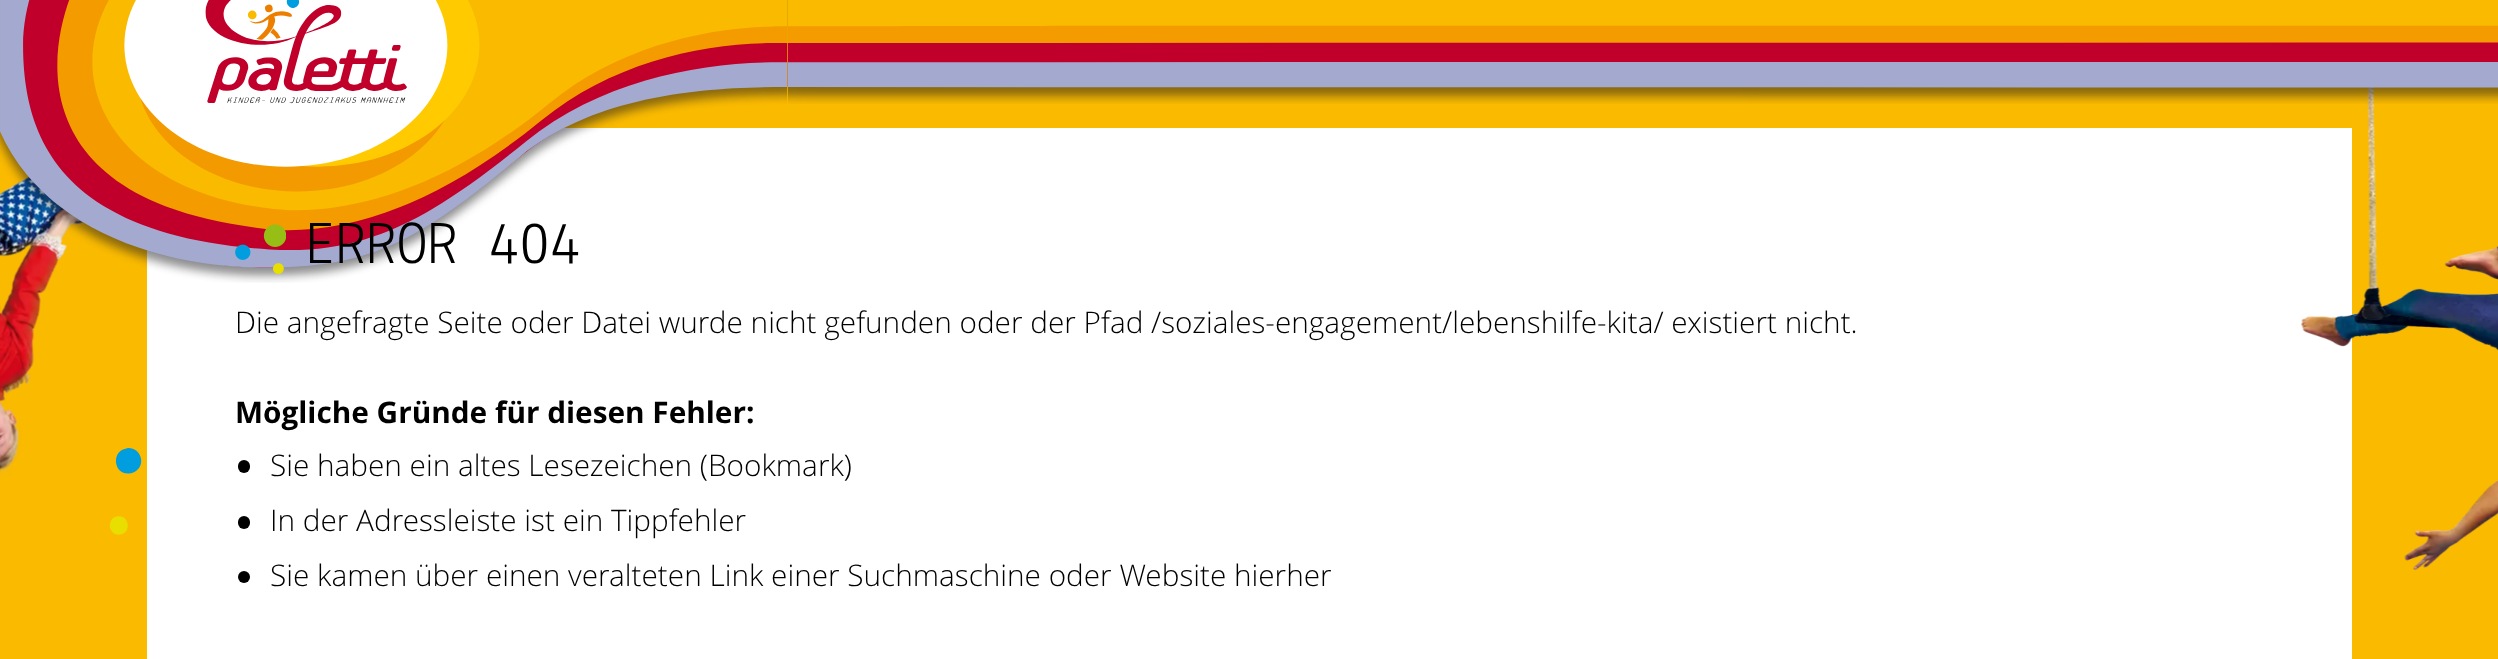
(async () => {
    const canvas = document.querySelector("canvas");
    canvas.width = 2498;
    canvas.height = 659;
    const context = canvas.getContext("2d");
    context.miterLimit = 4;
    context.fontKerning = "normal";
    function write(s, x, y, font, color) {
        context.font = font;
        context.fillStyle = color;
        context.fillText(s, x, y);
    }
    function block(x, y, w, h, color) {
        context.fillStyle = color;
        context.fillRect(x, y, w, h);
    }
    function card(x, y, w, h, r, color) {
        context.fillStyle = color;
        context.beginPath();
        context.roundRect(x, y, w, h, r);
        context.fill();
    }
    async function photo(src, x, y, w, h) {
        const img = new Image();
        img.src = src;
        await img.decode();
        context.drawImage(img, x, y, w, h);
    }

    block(0, 0, 2498, 659, "rgb(250, 186, 0)");
    block(147, 128, 2205, 531, "rgb(255, 255, 255)");
    await photo("media/3.png", 0, 176, 84, 300);
    await photo("media/1.png", 0, 0, 788, 283);
    await photo("media/5.png", 2300, 87, 198, 483);
    await photo("media/2.png", 788, 23, 1710, 81);
    context.fillStyle = "rgb(0, 157, 223)";
    context.beginPath();
    context.moveTo(128, 448);
    context.bezierCurveTo(140, 447.5, 146.5, 463.5, 136, 471);
    context.bezierCurveTo(134, 472.5, 131.5, 473.5, 129, 473.5);
    context.bezierCurveTo(114.5, 474.5, 111.5, 454.5, 123, 449.5);
    context.closePath();
    context.fill();
    context.fillStyle = "rgb(232, 223, 0)";
    context.beginPath();
    context.moveTo(116.5, 516.5);
    context.bezierCurveTo(105.5, 519.5, 109, 536.5, 120.5, 534.5);
    context.bezierCurveTo(132.5, 532, 128.5, 513.5, 116.5, 516.5);
    context.fill();
    await photo("media/4.png", 235, 224, 51, 50);
    write("ERROR 404", 305, 263, "61.25px Lekton", "rgb(0, 0, 0)");
    write("Die angefragte Seite oder Datei wurde nicht gefunden oder der Pfad /soziales-engagement/lebenshilfe-kita/ existiert nicht.", 235, 333, "300 29.75px Open Sans", "rgb(0, 0, 0)");
    write("Mögliche Gründe für diesen Fehler:", 235, 423, "bold 29.75px Open Sans", "rgb(0, 0, 0)");
    card(238, 460, 12, 13, 6, "rgb(0, 0, 0)");
    write("Sie haben ein altes Lesezeichen (Bookmark)", 270, 476, "300 29.75px Open Sans", "rgb(0, 0, 0)");
    card(238, 516, 12, 13, 6, "rgb(0, 0, 0)");
    write("In der Adressleiste ist ein Tippfehler", 270, 531, "300 29.75px Open Sans", "rgb(0, 0, 0)");
    context.beginPath();
    context.arc(244, 577, 6, 0, Math.PI * 2);
    context.fill();
    write("Sie kamen über einen veralteten Link einer Suchmaschine oder Website hierher", 270, 586, "300 29.75px Open Sans", "rgb(0, 0, 0)");
})();
